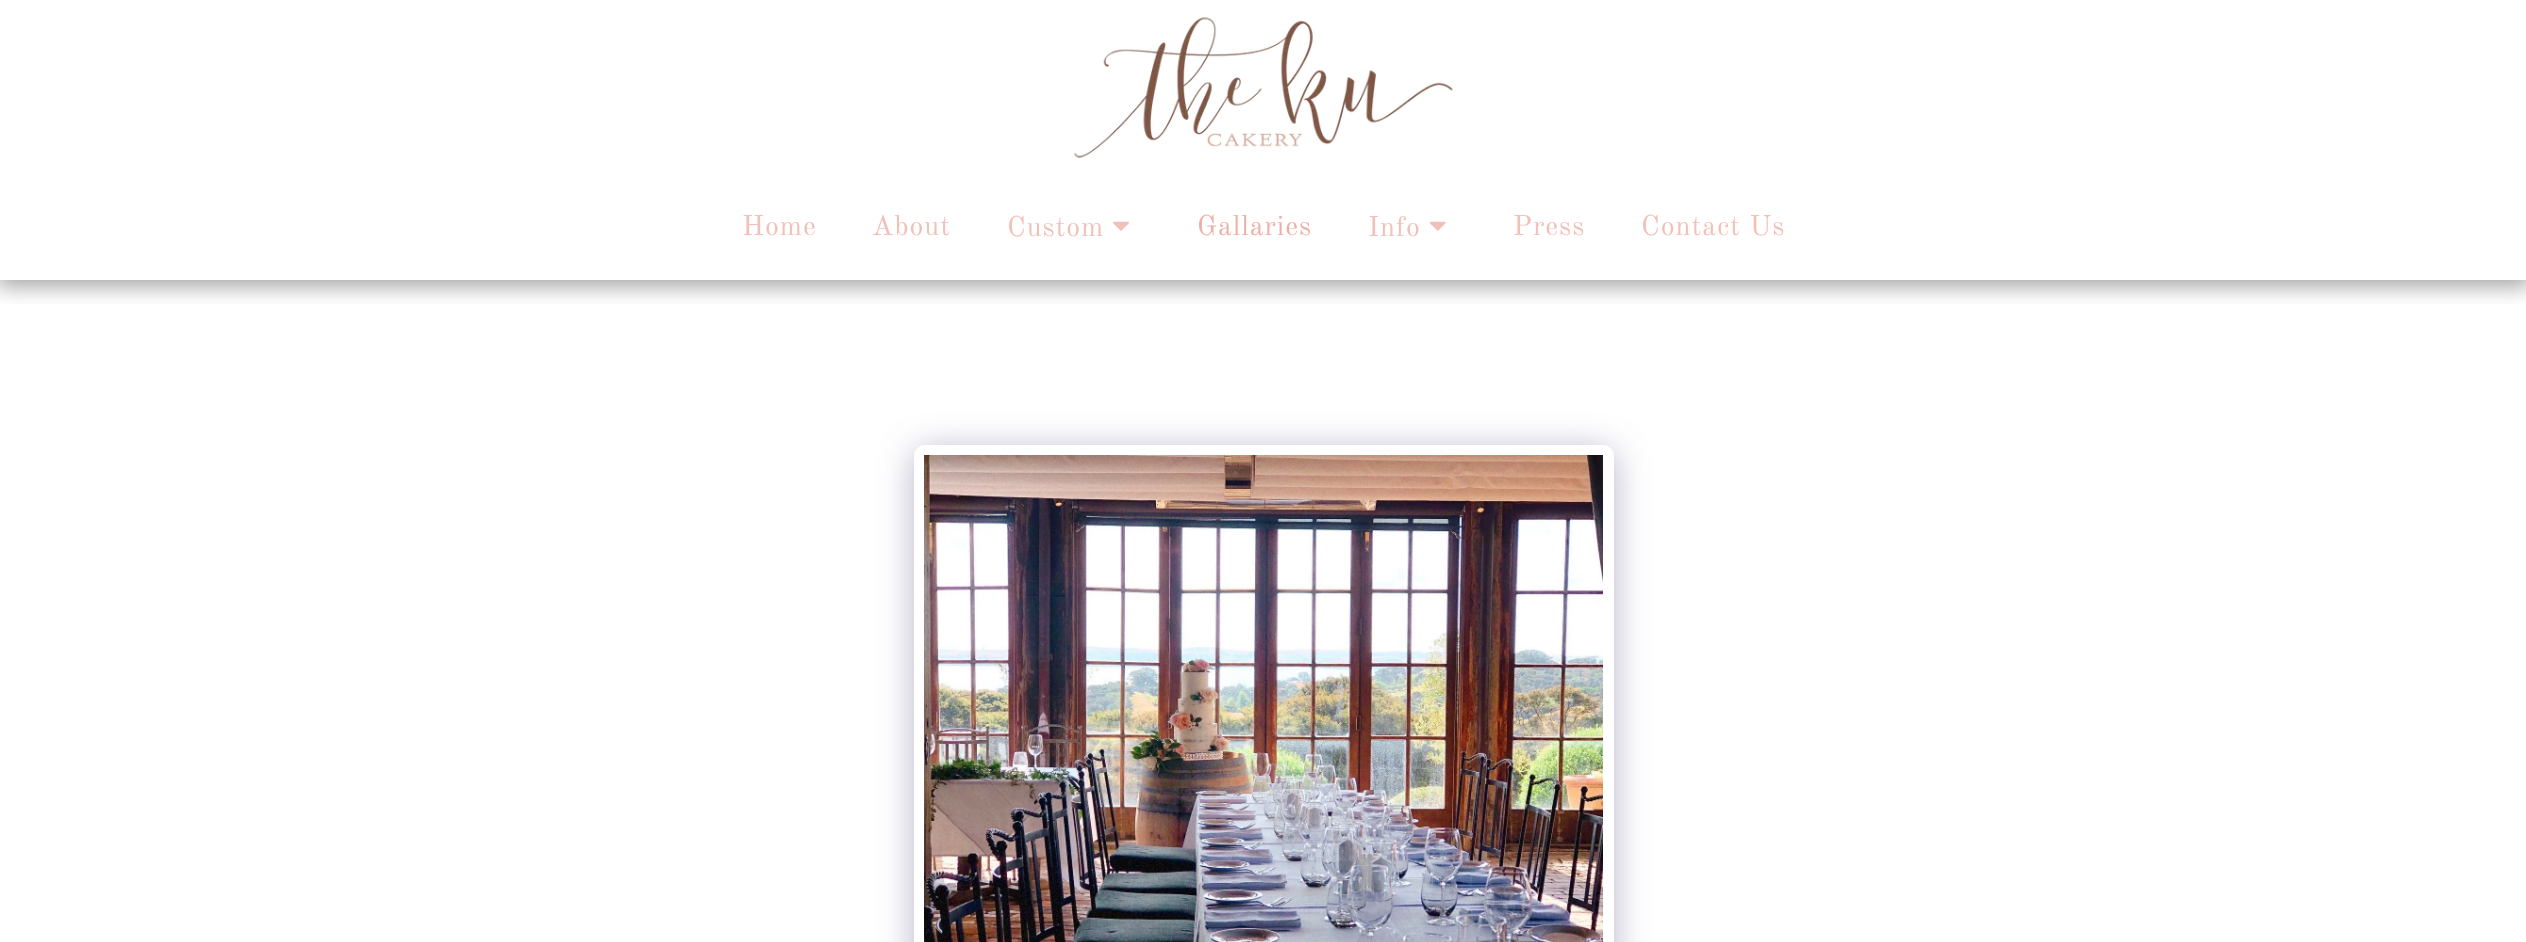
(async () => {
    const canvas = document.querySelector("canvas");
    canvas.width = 2526;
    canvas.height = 942;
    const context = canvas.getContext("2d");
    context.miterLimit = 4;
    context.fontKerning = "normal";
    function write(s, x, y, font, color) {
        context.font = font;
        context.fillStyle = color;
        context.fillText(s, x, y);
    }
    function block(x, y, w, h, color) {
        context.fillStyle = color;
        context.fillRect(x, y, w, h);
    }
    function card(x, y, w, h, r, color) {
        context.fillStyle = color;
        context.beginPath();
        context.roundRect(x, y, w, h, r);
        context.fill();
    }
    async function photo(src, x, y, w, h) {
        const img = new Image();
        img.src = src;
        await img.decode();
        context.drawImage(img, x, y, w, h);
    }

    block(0, 0, 2526, 942, "rgb(255, 255, 255)");
    context.save();
    context.beginPath();
    context.rect(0, 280, 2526, 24);
    context.clip();
    context.fillStyle = "rgba(0, 0, 0, 0.35)";
    context.filter = "blur(10.5px)";
    context.beginPath();
    context.rect(-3, 0, 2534, 287);
    context.fill();
    context.filter = "none";
    context.restore();
    await photo("media/1.png", 1074, 17, 379, 141);
    context.letterSpacing = "0.9px";
    write("Home", 742, 235, "28px Old Standard TT", "rgb(241, 193, 185)");
    write("About", 872, 235, "28px Old Standard TT", "rgb(241, 193, 185)");
    write("Custom", 1007, 236, "28px Old Standard TT", "rgb(241, 193, 185)");
    await photo("media/2.png", 1113, 221, 16, 10);
    write("Gallaries", 1197, 235, "28px Old Standard TT", "rgb(237, 177, 167)");
    write("Info", 1368, 236, "28px Old Standard TT", "rgb(241, 193, 185)");
    await photo("media/3.png", 1430, 221, 16, 10);
    write("Press", 1513, 235, "28px Old Standard TT", "rgb(241, 193, 185)");
    write("Contact Us", 1641, 235, "28px Old Standard TT", "rgb(241, 193, 185)");
    context.fillStyle = "rgba(77, 63, 122, 0.4)";
    context.filter = "blur(17.5px)";
    context.beginPath();
    context.roundRect(914, 450, 700, 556, 11);
    context.fill();
    context.filter = "none";
    card(914, 445, 700, 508, 11, "rgb(255, 255, 255)");
    await photo("media/4.png", 924, 455, 679, 487);
})();
